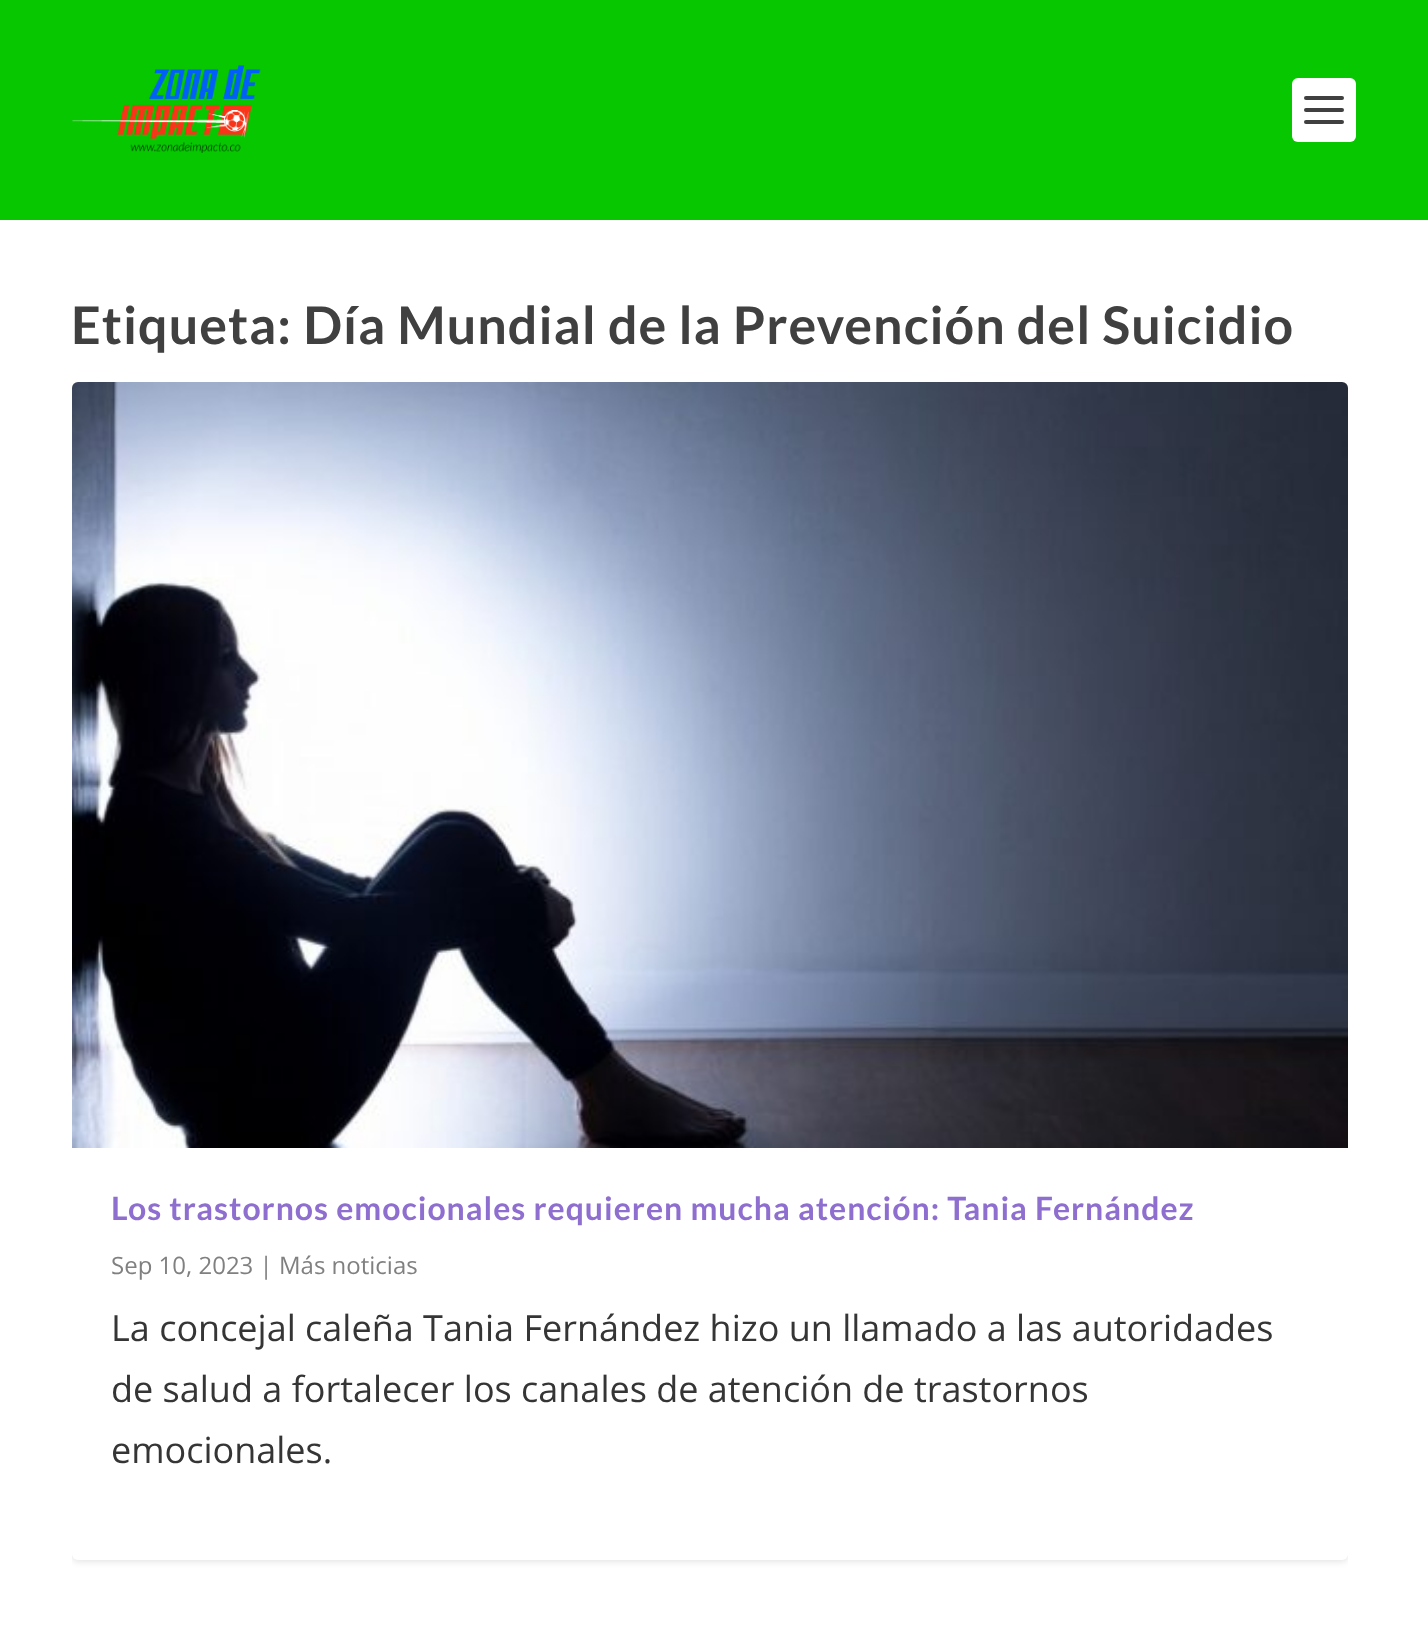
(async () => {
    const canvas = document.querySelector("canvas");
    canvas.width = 1428;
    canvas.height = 1629;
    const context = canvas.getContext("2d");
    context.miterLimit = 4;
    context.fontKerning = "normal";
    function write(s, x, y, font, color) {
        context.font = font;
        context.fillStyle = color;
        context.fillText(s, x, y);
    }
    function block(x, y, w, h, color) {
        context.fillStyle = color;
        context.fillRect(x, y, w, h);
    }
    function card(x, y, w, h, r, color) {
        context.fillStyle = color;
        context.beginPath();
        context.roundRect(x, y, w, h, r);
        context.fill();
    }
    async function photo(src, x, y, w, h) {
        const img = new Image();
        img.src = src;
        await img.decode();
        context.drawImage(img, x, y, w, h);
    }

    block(0, 0, 1428, 1629, "rgb(255, 255, 255)");
    block(0, 0, 1428, 220, "rgb(6, 199, 0)");
    await photo("media/1.png", 72, 65, 189, 88);
    card(1292, 78, 64, 64, 6, "rgb(255, 255, 255)");
    card(1304, 96, 40, 4, 2, "rgb(64, 64, 64)");
    card(1304, 108, 40, 4, 2, "rgb(64, 64, 64)");
    card(1304, 120, 40, 4, 2, "rgb(64, 64, 64)");
    context.letterSpacing = "1px";
    write("Etiqueta: Día Mundial de la Prevención del Suicidio", 71, 344, "bold 52px Lato", "rgb(64, 64, 64)");
    context.save();
    context.beginPath();
    context.roundRect(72, 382, 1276, 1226, 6);
    context.clip();
    context.fillStyle = "rgba(0, 0, 0, 0.1)";
    context.filter = "blur(3px)";
    context.beginPath();
    context.roundRect(72, 384, 1276, 1178, 6);
    context.fill();
    context.filter = "none";
    context.restore();
    card(72, 382, 1276, 1178, 6, "rgb(255, 255, 255)");
    await photo("media/2.png", 72, 382, 1276, 766);
    write("Los trastornos emocionales requieren mucha atención: Tania Fernández", 111, 1220, "bold 32px Lato", "rgb(142, 110, 207)");
    context.letterSpacing = "0px";
    write("Sep 10, 2023 | Más noticias", 111, 1274, "24px Open Sans", "rgb(128, 128, 128)");
    write("La concejal caleña Tania Fernández hizo un llamado a las autoridades", 111, 1341, "36px Open Sans", "rgb(53, 53, 53)");
    write("de salud a fortalecer los canales de atención de trastornos", 111, 1402, "36px Open Sans", "rgb(53, 53, 53)");
    write("emocionales.", 111, 1463, "36px Open Sans", "rgb(53, 53, 53)");
})();
